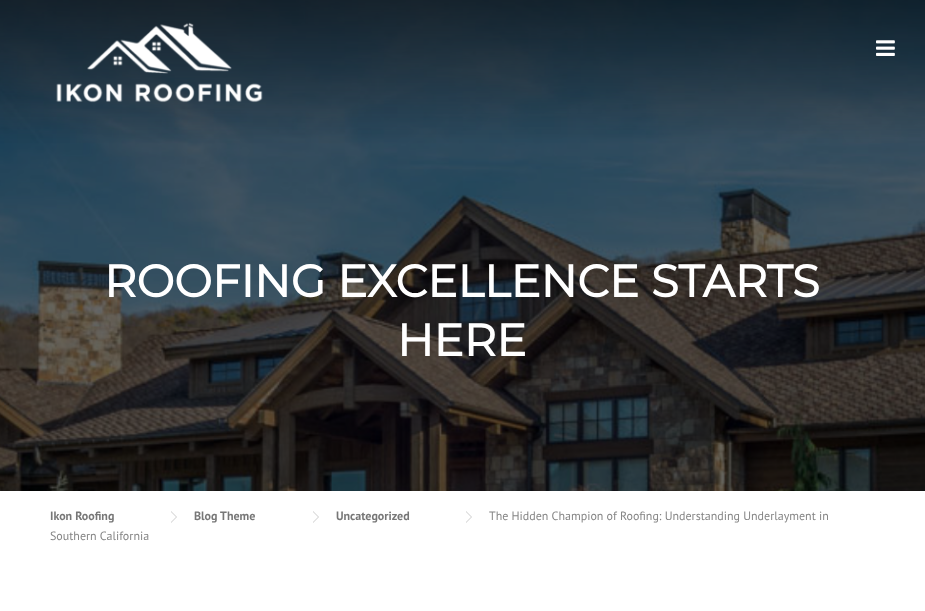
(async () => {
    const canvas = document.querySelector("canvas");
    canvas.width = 925;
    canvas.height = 611;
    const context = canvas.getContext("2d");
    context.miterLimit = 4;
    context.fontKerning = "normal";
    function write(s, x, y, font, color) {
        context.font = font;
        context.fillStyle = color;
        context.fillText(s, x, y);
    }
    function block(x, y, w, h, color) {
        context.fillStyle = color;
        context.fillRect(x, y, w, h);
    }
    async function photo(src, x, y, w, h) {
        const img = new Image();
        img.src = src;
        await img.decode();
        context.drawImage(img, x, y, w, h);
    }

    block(0, 0, 925, 611, "rgb(255, 255, 255)");
    await photo("media/3.png", 0, 0, 925, 491);
    await photo("media/1.png", 56, 22, 207, 81);
    await photo("media/2.png", 876, 40, 19, 16);
    write("ROOFING EXCELLENCE STARTS", 104, 297, "bold 45px Montserrat", "rgb(255, 255, 255)");
    write("HERE", 397, 356, "bold 45px Montserrat", "rgb(255, 255, 255)");
    write("Ikon Roofing", 50, 520, "bold 12px PT Sans", "rgb(119, 119, 119)");
    context.fillStyle = "rgb(204, 204, 204)";
    context.beginPath();
    context.moveTo(171, 523);
    context.lineTo(171, 511);
    context.lineTo(177, 517);
    context.closePath();
    context.fill();
    context.fillStyle = "rgb(255, 255, 255)";
    context.beginPath();
    context.moveTo(171, 522);
    context.lineTo(171, 512);
    context.lineTo(176, 517);
    context.closePath();
    context.fill();
    write("Blog Theme", 194, 520, "bold 12px PT Sans", "rgb(119, 119, 119)");
    context.fillStyle = "rgb(204, 204, 204)";
    context.beginPath();
    context.moveTo(313, 523);
    context.lineTo(313, 511);
    context.lineTo(319, 517);
    context.closePath();
    context.fill();
    context.fillStyle = "rgb(255, 255, 255)";
    context.beginPath();
    context.moveTo(313, 522);
    context.lineTo(313, 512);
    context.lineTo(318, 517);
    context.closePath();
    context.fill();
    write("Uncategorized", 336, 520, "bold 12px PT Sans", "rgb(119, 119, 119)");
    context.fillStyle = "rgb(204, 204, 204)";
    context.beginPath();
    context.moveTo(466, 523);
    context.lineTo(466, 511);
    context.lineTo(472, 517);
    context.closePath();
    context.fill();
    context.fillStyle = "rgb(255, 255, 255)";
    context.beginPath();
    context.moveTo(466, 522);
    context.lineTo(466, 512);
    context.lineTo(471, 517);
    context.closePath();
    context.fill();
    write("The Hidden Champion of Roofing: Understanding Underlayment in", 489, 520, "12px PT Sans", "rgb(133, 133, 133)");
    write("Southern California", 50, 540, "12px PT Sans", "rgb(133, 133, 133)");
})();
